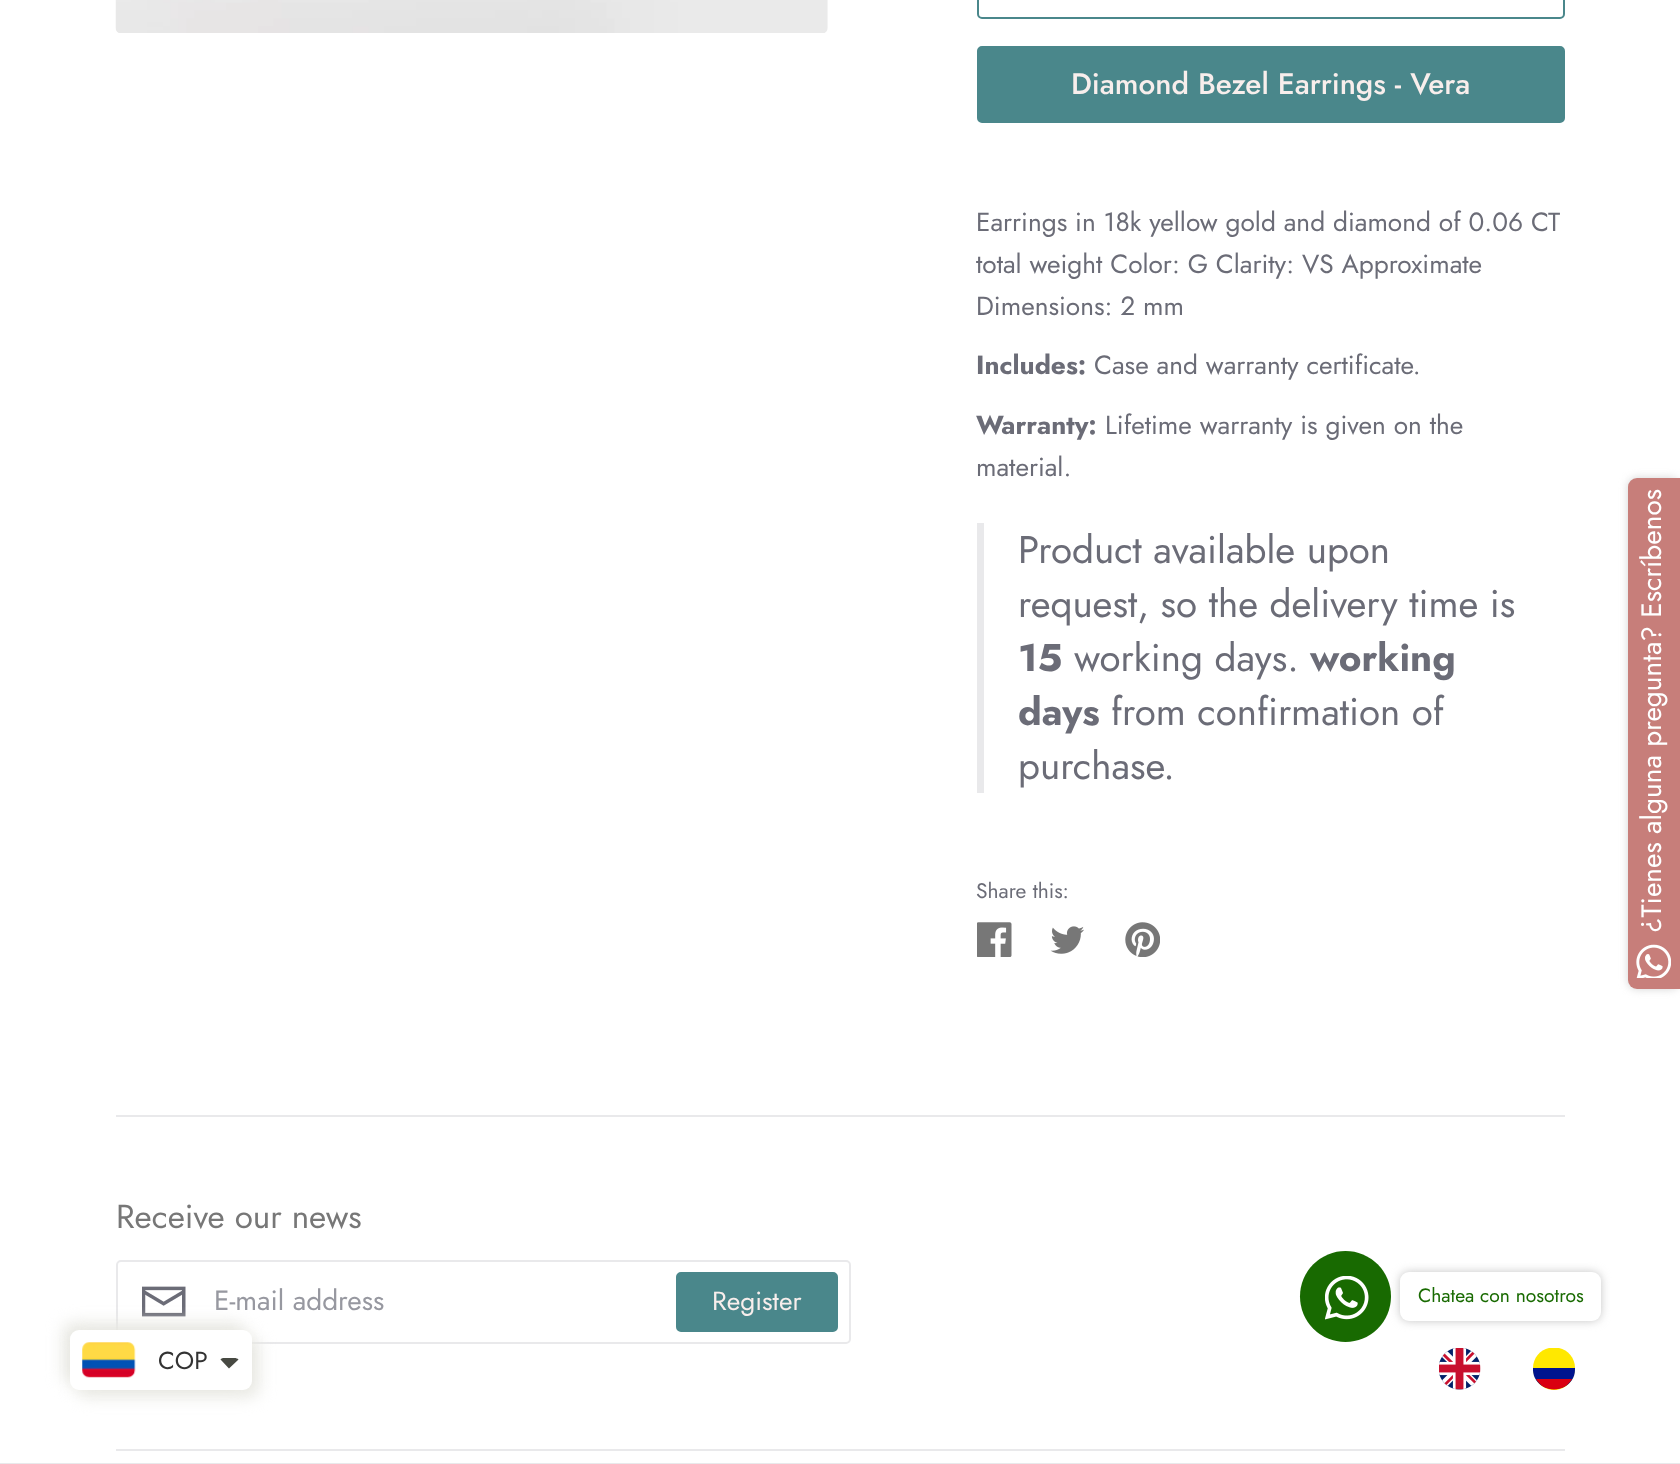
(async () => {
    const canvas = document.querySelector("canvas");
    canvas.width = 1680;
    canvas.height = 1464;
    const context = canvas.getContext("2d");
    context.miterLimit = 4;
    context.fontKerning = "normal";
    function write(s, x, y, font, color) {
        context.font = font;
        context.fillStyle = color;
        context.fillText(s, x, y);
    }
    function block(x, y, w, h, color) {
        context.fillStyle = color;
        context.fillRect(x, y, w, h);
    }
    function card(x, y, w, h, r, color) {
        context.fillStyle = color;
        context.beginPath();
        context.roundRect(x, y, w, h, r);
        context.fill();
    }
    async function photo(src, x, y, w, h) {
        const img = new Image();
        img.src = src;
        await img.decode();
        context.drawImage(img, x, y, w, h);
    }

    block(0, 0, 1680, 1464, "rgb(255, 255, 255)");
    await photo("media/1.png", 115, 0, 713, 33);
    context.beginPath();
    context.roundRect(978, -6, 586, 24, 4);
    context.strokeStyle = "rgb(74, 135, 139)";
    context.lineWidth = 2;
    context.stroke();
    context.fillStyle = "rgb(74, 135, 139)";
    context.beginPath();
    context.roundRect(978, 47, 586, 75, 4);
    context.fill();
    context.stroke();
    write("Diamond Bezel Earrings - Vera", 1071, 94, "500 29.75px Jost", "rgb(248, 238, 236)");
    write("Earrings in 18k yellow gold and diamond of 0.06 CT", 976, 231, "26.25px Jost", "rgb(107, 108, 119)");
    write("total weight Color: G Clarity: VS Approximate", 976, 273, "26.25px Jost", "rgb(107, 108, 119)");
    write("Dimensions: 2 mm", 976, 315, "26.25px Jost", "rgb(107, 108, 119)");
    write("Includes:", 976, 374, "bold 26.25px Jost", "rgb(107, 108, 119)");
    write("Case and warranty certificate.", 1094, 374, "26.25px Jost", "rgb(107, 108, 119)");
    write("Warranty:", 976, 434, "bold 26.25px Jost", "rgb(107, 108, 119)");
    write("Lifetime warranty is given on the", 1105, 434, "26.25px Jost", "rgb(107, 108, 119)");
    write("material.", 976, 476, "26.25px Jost", "rgb(107, 108, 119)");
    block(977, 523, 7, 270, "rgb(233, 233, 235)");
    write("Product available upon", 1018, 563, "38.5px Jost", "rgb(107, 108, 119)");
    write("request, so the delivery time is", 1018, 617, "38.5px Jost", "rgb(107, 108, 119)");
    write("15", 1018, 671, "bold 38.5px Jost", "rgb(107, 108, 119)");
    write("working days.", 1074, 671, "38.5px Jost", "rgb(107, 108, 119)");
    write("working", 1310, 671, "bold 38.5px Jost", "rgb(107, 108, 119)");
    write("days", 1018, 725, "bold 38.5px Jost", "rgb(107, 108, 119)");
    write("from confirmation of", 1111, 725, "38.5px Jost", "rgb(107, 108, 119)");
    write("purchase.", 1018, 779, "38.5px Jost", "rgb(107, 108, 119)");
    write("Share this:", 976, 898, "21px Jost", "rgb(107, 108, 119)");
    await photo("media/2.png", 977, 922, 35, 35);
    await photo("media/3.png", 1050, 926, 34, 28);
    await photo("media/4.png", 1125, 922, 35, 35);
    context.fillStyle = "rgb(211, 211, 211)";
    context.filter = "blur(4.5px)";
    context.beginPath();
    context.roundRect(1628, 478, 52, 511, 9);
    context.fill();
    context.filter = "none";
    context.fillStyle = "rgb(199, 126, 122)";
    context.beginPath();
    context.roundRect(1628, 478, 52, 511, [9, 0, 0, 9]);
    context.fill();
    context.font = "28px Jost";
    context.fillStyle = "rgb(255, 255, 255)";
    context.save();
    context.translate(1661, 933);
    context.rotate(-90 * Math.PI / 180);
    context.fillText("¿Tienes alguna pregunta? Escríbenos", 0, 0);
    context.restore();
    await photo("media/5.png", 1636, 944, 35, 34);
    block(116, 1115, 1449, 2, "rgb(233, 233, 235)");
    write("Receive our news", 116, 1228, "33.25px Jost", "rgb(119, 119, 119)");
    context.beginPath();
    context.roundRect(117, 1261, 733, 82, 4);
    context.strokeStyle = "rgb(233, 233, 235)";
    context.stroke();
    await photo("media/6.png", 142, 1286, 44, 31);
    write("E-mail address", 214, 1310, "28px Jost", "rgb(151, 152, 160)");
    context.fillStyle = "rgb(74, 135, 139)";
    context.beginPath();
    context.roundRect(677, 1273, 160, 58, 4);
    context.fill();
    context.strokeStyle = "rgb(74, 135, 139)";
    context.stroke();
    write("Register", 712, 1310, "26.25px Jost", "rgb(248, 238, 236)");
    block(116, 1449, 1449, 2, "rgb(233, 233, 235)");
    context.fillStyle = "rgb(24, 106, 1)";
    context.beginPath();
    context.arc(1345.5, 1296.5, 45.5, 0, Math.PI * 2);
    context.fill();
    await photo("media/7.png", 1325, 1276, 44, 44);
    context.fillStyle = "rgb(197, 197, 197)";
    context.filter = "blur(5px)";
    context.beginPath();
    context.roundRect(1400, 1272, 201, 49, 9);
    context.fill();
    context.filter = "none";
    card(1400, 1272, 201, 49, 9, "rgb(255, 255, 255)");
    write("Chatea con nosotros", 1418, 1302, "19.25px Jost", "rgb(24, 106, 1)");
    await photo("media/8.png", 1439, 1348, 42, 42);
    context.fillStyle = "rgb(255, 232, 0)";
    context.beginPath();
    context.moveTo(1559, 1348);
    context.bezierCurveTo(1568, 1350, 1575, 1358, 1575, 1368);
    context.bezierCurveTo(1575, 1380, 1566, 1390, 1554, 1390);
    context.bezierCurveTo(1542, 1390, 1533, 1380, 1533, 1368);
    context.bezierCurveTo(1533, 1358, 1540, 1350, 1549, 1348);
    context.closePath();
    context.fill();
    context.fillStyle = "rgb(0, 20, 142)";
    context.beginPath();
    context.moveTo(1575, 1368);
    context.bezierCurveTo(1576, 1396, 1532, 1396, 1533, 1368);
    context.closePath();
    context.fill();
    context.fillStyle = "rgb(218, 0, 16)";
    context.beginPath();
    context.moveTo(1572, 1379);
    context.bezierCurveTo(1564, 1393, 1544, 1393, 1536, 1379);
    context.closePath();
    context.fill();
    context.fillStyle = "rgb(232, 232, 226)";
    context.filter = "blur(8px)";
    context.beginPath();
    context.roundRect(63, 1323, 182, 60, 9);
    context.fill();
    context.filter = "none";
    context.filter = "blur(8px)";
    context.beginPath();
    context.roundRect(77, 1337, 182, 60, 9);
    context.fill();
    context.filter = "none";
    card(70, 1330, 182, 60, 9, "rgb(255, 255, 255)");
    await photo("media/9.png", 82, 1342, 54, 36);
    write("COP", 158, 1369, "24.5px Jost", "rgb(51, 51, 51)");
    context.fillStyle = "rgb(71, 73, 66)";
    context.beginPath();
    context.moveTo(224, 1358);
    context.lineTo(234.5, 1358);
    context.bezierCurveTo(236, 1358, 237.5, 1358.5, 238.5, 1359.5);
    context.lineTo(229, 1368.5);
    context.lineTo(220.5, 1359.5);
    context.bezierCurveTo(221, 1358.5, 222.5, 1358, 224, 1358);
    context.closePath();
    context.fill();
    block(0, 1463, 1680, 1, "rgb(233, 233, 235)");
})();
